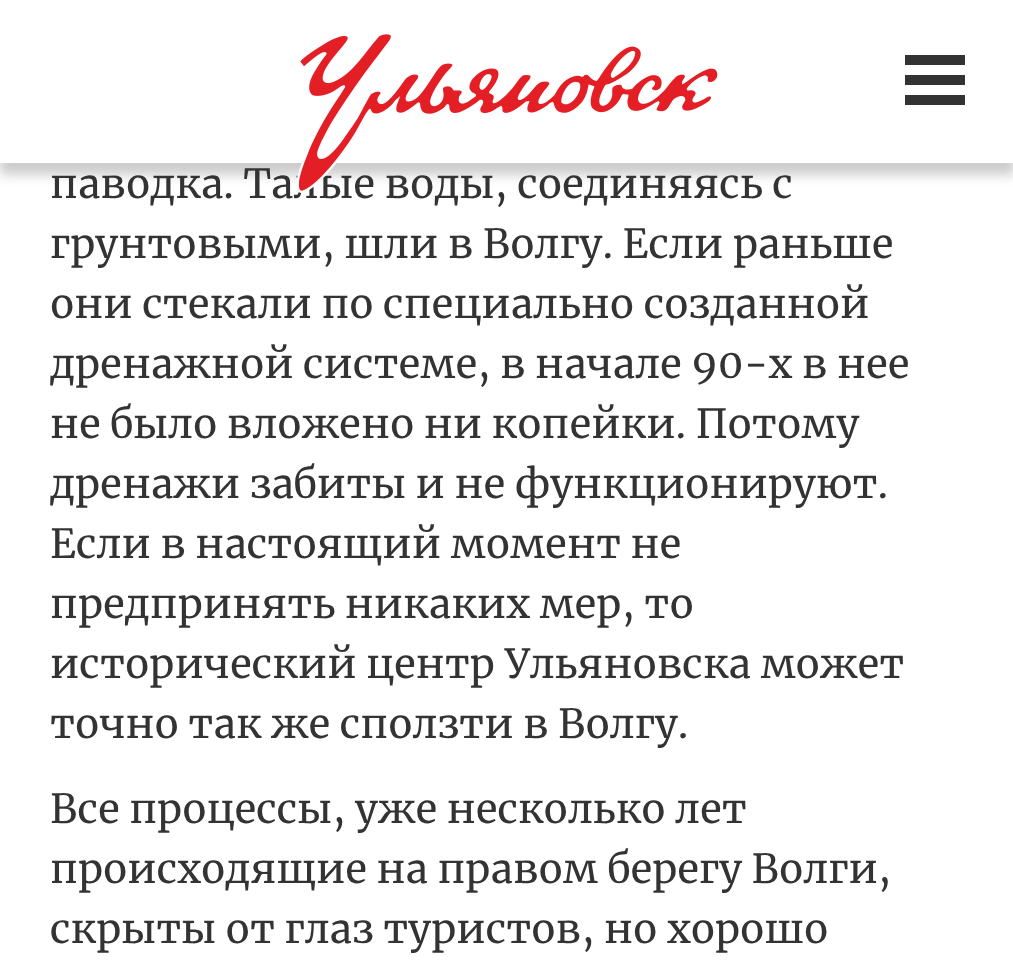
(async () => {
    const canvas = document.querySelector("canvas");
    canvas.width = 1013;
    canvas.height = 973;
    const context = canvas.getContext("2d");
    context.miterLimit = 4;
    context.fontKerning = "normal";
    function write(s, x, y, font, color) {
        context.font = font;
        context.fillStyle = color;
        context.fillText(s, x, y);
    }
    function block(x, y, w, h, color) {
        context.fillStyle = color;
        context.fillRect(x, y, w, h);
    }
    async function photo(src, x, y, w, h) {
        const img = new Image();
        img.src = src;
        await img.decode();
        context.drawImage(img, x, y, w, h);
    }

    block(0, 0, 1013, 973, "rgb(255, 255, 255)");
    context.fillStyle = "rgba(0, 0, 0, 0.2)";
    context.filter = "blur(6px)";
    context.beginPath();
    context.rect(0, 13, 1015, 162);
    context.fill();
    context.filter = "none";
    block(0, 3, 1013, 160, "rgb(255, 255, 255)");
    write("паводка. Талые воды, соединяясь с", 50, 198, "40px Merriweather", "rgb(51, 51, 51)");
    await photo("media/1.png", 297, 34, 421, 159);
    block(905, 55, 60, 10, "rgb(51, 51, 51)");
    block(905, 75, 60, 10, "rgb(51, 51, 51)");
    block(905, 95, 60, 10, "rgb(51, 51, 51)");
    write("грунтовыми, шли в Волгу. Если раньше", 50, 258, "40px Merriweather", "rgb(51, 51, 51)");
    write("они стекали по специально созданной", 50, 318, "40px Merriweather", "rgb(51, 51, 51)");
    write("дренажной системе, в начале 90-х в нее", 50, 378, "40px Merriweather", "rgb(51, 51, 51)");
    write("не было вложено ни копейки. Потому", 50, 438, "40px Merriweather", "rgb(51, 51, 51)");
    write("дренажи забиты и не функционируют.", 50, 498, "40px Merriweather", "rgb(51, 51, 51)");
    write("Если в настоящий момент не", 50, 558, "40px Merriweather", "rgb(51, 51, 51)");
    write("предпринять никаких мер, то", 50, 618, "40px Merriweather", "rgb(51, 51, 51)");
    write("исторический центр Ульяновска может", 50, 678, "40px Merriweather", "rgb(51, 51, 51)");
    write("точно так же сползти в Волгу.", 50, 738, "40px Merriweather", "rgb(51, 51, 51)");
    write("Все процессы, уже несколько лет", 50, 823, "40px Merriweather", "rgb(51, 51, 51)");
    write("происходящие на правом берегу Волги,", 50, 883, "40px Merriweather", "rgb(51, 51, 51)");
    write("скрыты от глаз туристов, но хорошо", 50, 943, "40px Merriweather", "rgb(51, 51, 51)");
})();
